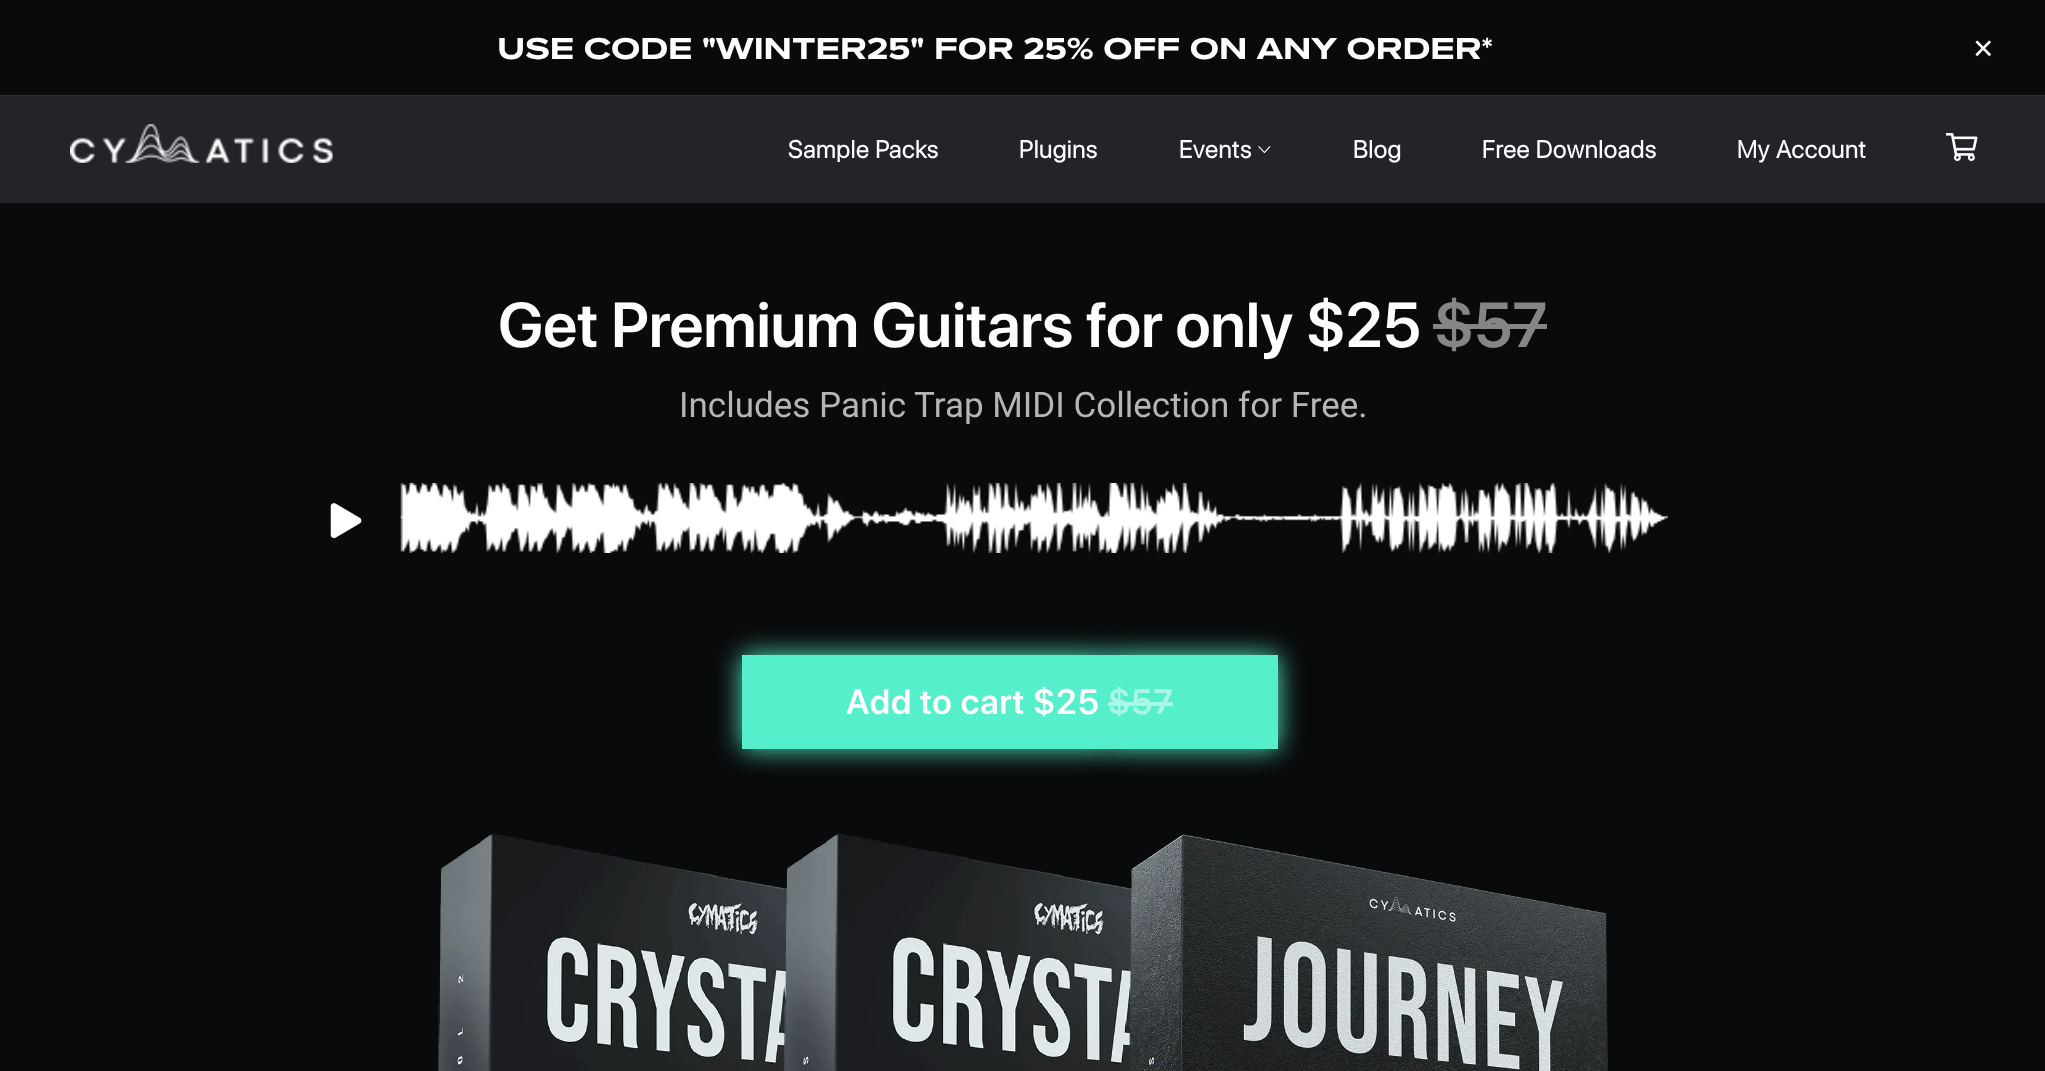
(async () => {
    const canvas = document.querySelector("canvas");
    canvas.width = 2045;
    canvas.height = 1071;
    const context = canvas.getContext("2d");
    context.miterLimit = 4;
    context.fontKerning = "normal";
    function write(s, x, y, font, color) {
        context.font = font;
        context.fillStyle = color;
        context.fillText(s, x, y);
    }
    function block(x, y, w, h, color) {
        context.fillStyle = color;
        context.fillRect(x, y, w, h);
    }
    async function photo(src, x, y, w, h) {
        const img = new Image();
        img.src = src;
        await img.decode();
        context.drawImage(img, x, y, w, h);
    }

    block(0, 0, 2045, 1071, "rgb(9, 10, 12)");
    write("USE CODE \"WINTER25\" FOR 25% OFF ON ANY ORDER*", 497, 59, "bold 31.5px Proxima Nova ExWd", "rgb(255, 255, 255)");
    write("×", 1973, 60, "35px Liberation Sans", "rgb(255, 255, 255)");
    block(0, 95, 2045, 1, "rgb(47, 48, 55)");
    block(0, 96, 2045, 107, "rgb(35, 36, 41)");
    await photo("media/1.png", 70, 124, 263, 39);
    context.letterSpacing = "0.9px";
    write("Sample Packs", 788, 158, "bold 24.5px SF Pro Display", "rgb(255, 255, 255)");
    write("Plugins", 1019, 158, "bold 24.5px SF Pro Display", "rgb(255, 255, 255)");
    write("Events", 1179, 158, "bold 24.5px SF Pro Display", "rgb(255, 255, 255)");
    await photo("media/2.png", 1258, 146, 13, 8);
    write("Blog", 1353, 158, "bold 24.5px SF Pro Display", "rgb(255, 255, 255)");
    write("Free Downloads", 1482, 158, "bold 24.5px SF Pro Display", "rgb(255, 255, 255)");
    write("My Account", 1737, 158, "bold 24.5px SF Pro Display", "rgb(255, 255, 255)");
    await photo("media/3.png", 1946, 133, 32, 28);
    context.letterSpacing = "0px";
    write("Get Premium Guitars for only $25", 498, 347, "600 63px SF Pro Display", "rgb(255, 255, 255)");
    write("$57", 1434, 347, "600 63px SF Pro Display", "rgb(132, 133, 134)");
    block(1433, 324, 114, 5, "rgb(132, 133, 134)");
    write("Includes Panic Trap MIDI Collection for Free.", 679, 417, "35px Roboto", "rgb(181, 182, 182)");
    await photo("media/4.png", 330, 503, 32, 36);
    await photo("media/5.png", 400, 483, 1268, 70);
    context.fillStyle = "rgb(85, 239, 203)";
    context.filter = "blur(13px)";
    context.beginPath();
    context.rect(742, 655, 366, 94);
    context.fill();
    context.filter = "none";
    block(742, 655, 366, 94, "rgb(85, 239, 203)");
    context.filter = "blur(13px)";
    context.beginPath();
    context.rect(1108, 655, 170, 94);
    context.fill();
    context.filter = "none";
    context.letterSpacing = "0.9px";
    write("Add to cart $25", 846, 714, "600 35px SF Pro Display", "rgb(255, 255, 255)");
    block(1108, 655, 170, 94, "rgb(85, 239, 203)");
    write("$57", 1108, 714, "600 35px SF Pro Display", "rgb(170, 247, 229)");
    block(1108, 702, 65, 4, "rgb(170, 247, 229)");
    await photo("media/6.png", 438, 833, 1170, 238);
})();
